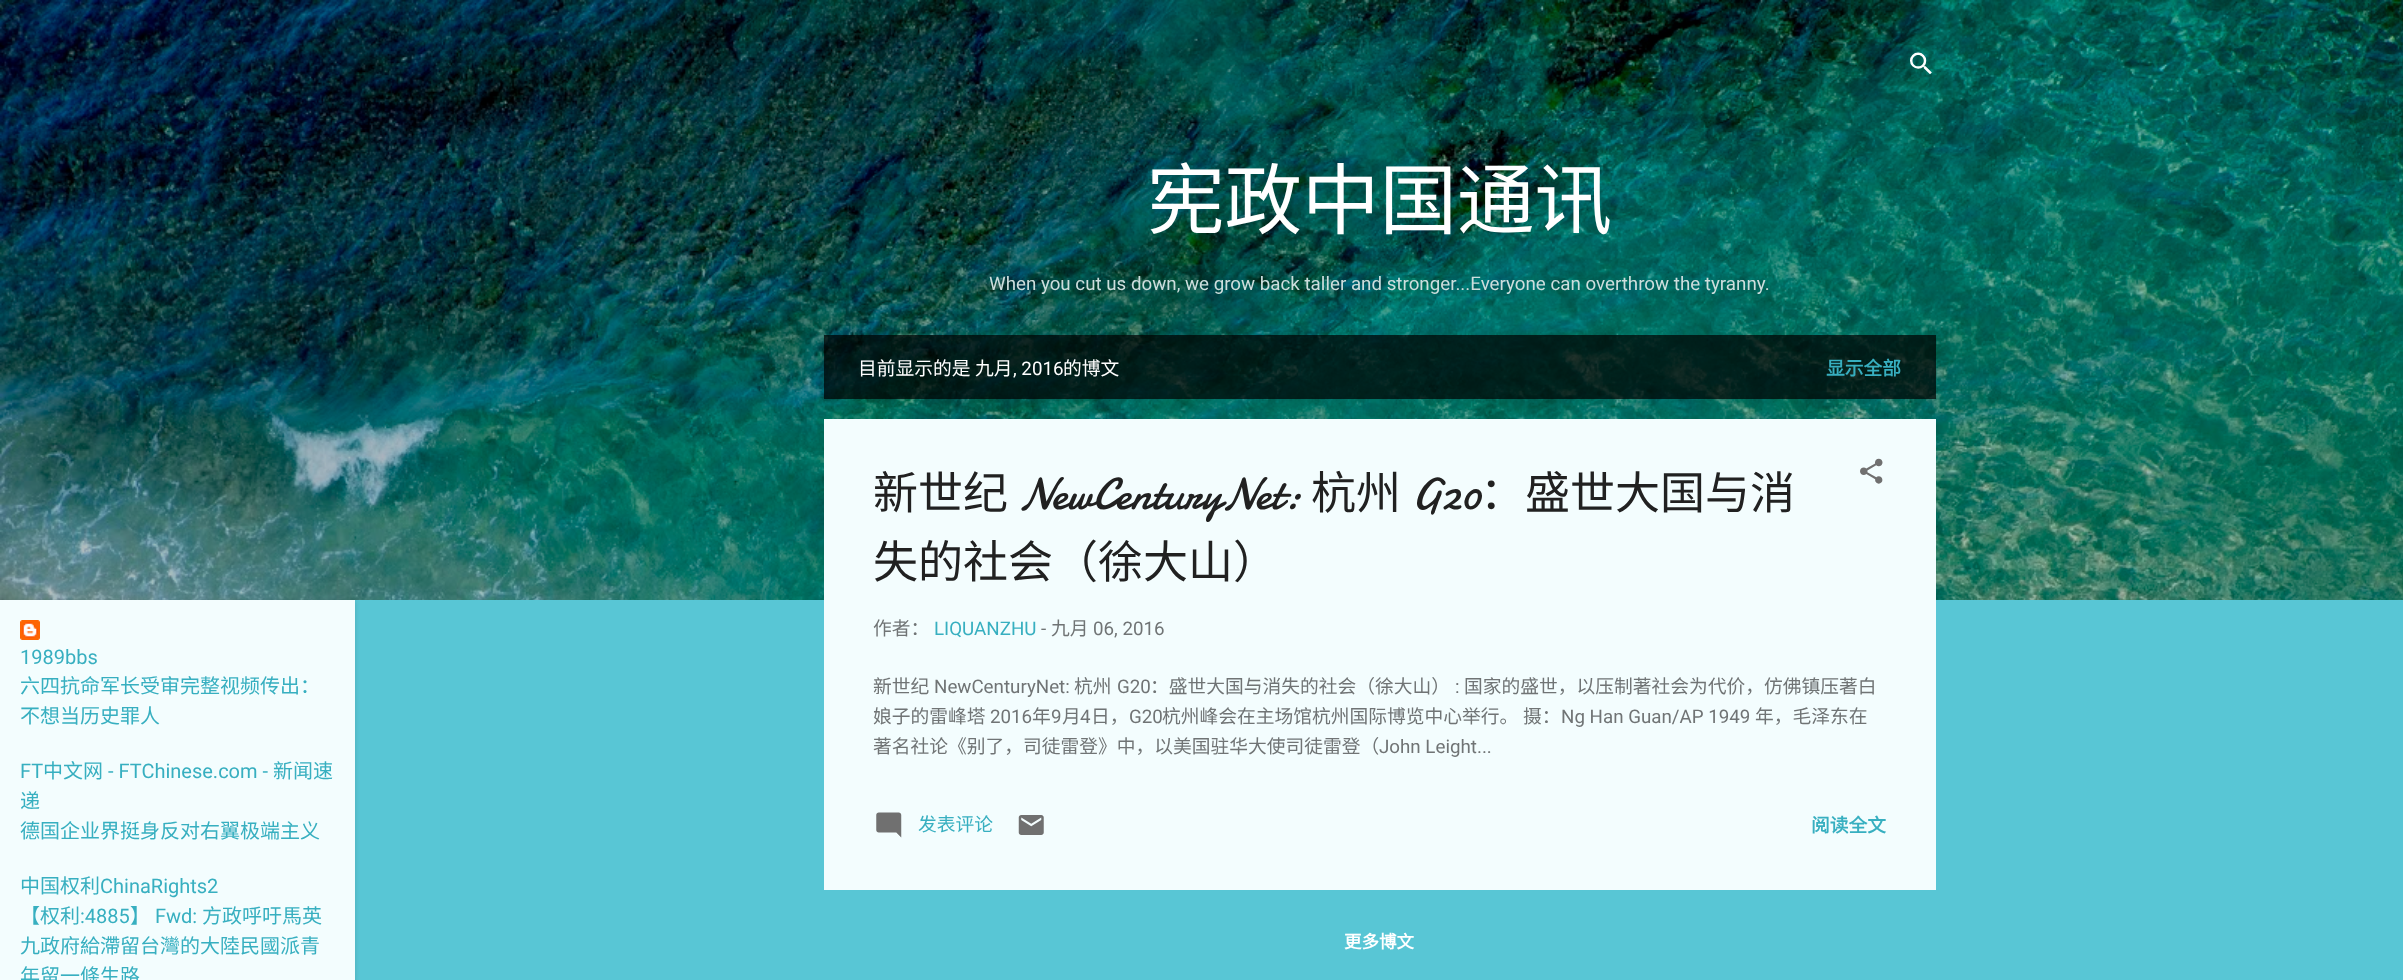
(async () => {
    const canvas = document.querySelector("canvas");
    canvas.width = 2403;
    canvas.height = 980;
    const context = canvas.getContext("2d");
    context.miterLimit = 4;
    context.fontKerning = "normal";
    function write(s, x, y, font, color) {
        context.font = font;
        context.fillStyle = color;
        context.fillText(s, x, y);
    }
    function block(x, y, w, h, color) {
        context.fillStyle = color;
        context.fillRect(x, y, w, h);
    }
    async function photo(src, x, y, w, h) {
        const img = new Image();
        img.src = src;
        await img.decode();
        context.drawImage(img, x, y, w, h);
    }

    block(0, 0, 2403, 980, "rgb(88, 198, 213)");
    await photo("media/2.png", 0, 0, 2403, 600);
    context.fillStyle = "rgba(0, 0, 0, 0.1)";
    context.filter = "blur(2px)";
    context.beginPath();
    context.rect(1, 601, 355, 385);
    context.fill();
    context.filter = "none";
    block(0, 600, 355, 380, "rgb(243, 253, 254)");
    await photo("media/1.png", 20, 620, 20, 20);
    write("1989bbs", 20, 664, "20px Roboto", "rgb(55, 175, 192)");
    write("六四抗命军长受审完整视频传出：", 20, 693, "20px Noto Sans CJK SC", "rgb(55, 175, 192)");
    write("不想当历史罪人", 20, 723, "20px Noto Sans CJK SC", "rgb(55, 175, 192)");
    write("FT", 20, 778, "20px Roboto", "rgb(55, 175, 192)");
    write("中文网", 43, 778, "20px Noto Sans CJK SC", "rgb(55, 175, 192)");
    write("- FTChinese.com -", 108, 778, "20px Roboto", "rgb(55, 175, 192)");
    write("新闻速", 273, 778, "20px Noto Sans CJK SC", "rgb(55, 175, 192)");
    write("递", 20, 808, "20px Noto Sans CJK SC", "rgb(55, 175, 192)");
    write("德国企业界挺身反对右翼极端主义", 20, 838, "20px Noto Sans CJK SC", "rgb(55, 175, 192)");
    write("中国权利", 20, 893, "20px Noto Sans CJK SC", "rgb(55, 175, 192)");
    write("ChinaRights2", 100, 893, "20px Roboto", "rgb(55, 175, 192)");
    write("【权利", 20, 923, "20px Noto Sans CJK SC", "rgb(55, 175, 192)");
    write(":4885", 80, 923, "20px Roboto", "rgb(55, 175, 192)");
    write("】", 130, 923, "20px Noto Sans CJK SC", "rgb(55, 175, 192)");
    write("Fwd:", 155, 923, "20px Roboto", "rgb(55, 175, 192)");
    write("方政呼吁馬英", 202, 923, "20px Noto Sans CJK SC", "rgb(55, 175, 192)");
    write("九政府給滯留台灣的大陸民國派青", 20, 953, "20px Noto Sans CJK SC", "rgb(55, 175, 192)");
    write("年留一條生路", 20, 983, "20px Noto Sans CJK SC", "rgb(55, 175, 192)");
    await photo("media/3.png", 1910, 52, 22, 23);
    write("宪政中国通讯", 1147, 228, "77.5px Noto Sans CJK SC", "rgb(255, 255, 255)");
    write("When you cut us down, we grow back taller and stronger...Everyone can overthrow the tyranny.", 989, 290, "18.75px Roboto", "rgb(205, 222, 221)");
    block(824, 335, 1112, 64, "rgba(0, 0, 0, 0.7)");
    write("目前显示的是", 858, 375, "18.75px Noto Sans CJK SC", "rgb(255, 255, 255)");
    write("九月", 975, 375, "18.75px Noto Sans CJK SC", "rgb(255, 255, 255)");
    write(", 2016", 1013, 375, "18.75px Roboto", "rgb(255, 255, 255)");
    write("的博文", 1063, 375, "18.75px Noto Sans CJK SC", "rgb(255, 255, 255)");
    write("显示全部", 1826, 375, "bold 18.75px Noto Sans CJK SC", "rgb(55, 175, 192)");
    block(824, 419, 1112, 471, "rgb(243, 253, 254)");
    write("新世纪", 873, 509, "45px Noto Sans CJK SC", "rgb(33, 33, 33)");
    write("NewCenturyNet:", 1019, 509, "45px Damion", "rgb(33, 33, 33)");
    write("杭州", 1311, 509, "45px Noto Sans CJK SC", "rgb(33, 33, 33)");
    write("G20", 1412, 509, "45px Damion", "rgb(33, 33, 33)");
    write("：盛世大国与消", 1480, 509, "45px Noto Sans CJK SC", "rgb(33, 33, 33)");
    write("失的社会（徐大山）", 873, 578, "45px Noto Sans CJK SC", "rgb(33, 33, 33)");
    await photo("media/4.png", 1860, 458, 23, 26);
    write("作者：", 873, 635, "18.75px Noto Sans CJK SC", "rgb(112, 116, 117)");
    write("LIQUANZHU", 934, 635, "18.75px Roboto", "rgb(55, 175, 192)");
    write("-", 1041, 635, "18.75px Roboto", "rgb(112, 116, 117)");
    write("九月", 1051, 635, "18.75px Noto Sans CJK SC", "rgb(112, 116, 117)");
    write("06, 2016", 1093, 635, "18.75px Roboto", "rgb(112, 116, 117)");
    write("新世纪", 873, 693, "18.75px Noto Sans CJK SC", "rgb(112, 116, 117)");
    write("NewCenturyNet:", 934, 693, "18.75px Roboto", "rgb(112, 116, 117)");
    write("杭州", 1074, 693, "18.75px Noto Sans CJK SC", "rgb(112, 116, 117)");
    write("G20", 1117, 693, "18.75px Roboto", "rgb(112, 116, 117)");
    write("：盛世大国与消失的社会（徐大山）", 1150, 693, "18.75px Noto Sans CJK SC", "rgb(112, 116, 117)");
    write(":", 1455, 693, "18.75px Roboto", "rgb(112, 116, 117)");
    write("国家的盛世，以压制著社会为代价，仿佛镇压著白", 1464, 693, "18.75px Noto Sans CJK SC", "rgb(112, 116, 117)");
    write("娘子的雷峰塔", 873, 723, "18.75px Noto Sans CJK SC", "rgb(112, 116, 117)");
    write("2016", 990, 723, "18.75px Roboto", "rgb(112, 116, 117)");
    write("年", 1032, 723, "18.75px Noto Sans CJK SC", "rgb(112, 116, 117)");
    write("9", 1051, 723, "18.75px Roboto", "rgb(112, 116, 117)");
    write("月", 1062, 723, "18.75px Noto Sans CJK SC", "rgb(112, 116, 117)");
    write("4", 1080, 723, "18.75px Roboto", "rgb(112, 116, 117)");
    write("日，", 1091, 723, "18.75px Noto Sans CJK SC", "rgb(112, 116, 117)");
    write("G20", 1129, 723, "18.75px Roboto", "rgb(112, 116, 117)");
    write("杭州峰会在主场馆杭州国际博览中心举行。", 1162, 723, "18.75px Noto Sans CJK SC", "rgb(112, 116, 117)");
    write("摄：", 1523, 723, "18.75px Noto Sans CJK SC", "rgb(112, 116, 117)");
    write("Ng Han Guan/AP 1949", 1561, 723, "18.75px Roboto", "rgb(112, 116, 117)");
    write("年，毛泽东在", 1755, 723, "18.75px Noto Sans CJK SC", "rgb(112, 116, 117)");
    write("著名社论《别了，司徒雷登》中，以美国驻华大使司徒雷登（", 873, 753, "18.75px Noto Sans CJK SC", "rgb(112, 116, 117)");
    write("John Leight...", 1379, 753, "18.75px Roboto", "rgb(112, 116, 117)");
    await photo("media/5.png", 876, 812, 26, 26);
    write("发表评论", 918, 831, "18.75px Noto Sans CJK SC", "rgb(55, 175, 192)");
    await photo("media/6.png", 1018, 815, 26, 20);
    write("阅读全文", 1811, 832, "bold 18.75px Noto Sans CJK SC", "rgb(55, 175, 192)");
    write("更多博文", 1344, 948, "bold 17.5px Noto Sans CJK SC", "rgb(255, 255, 255)");
})();
